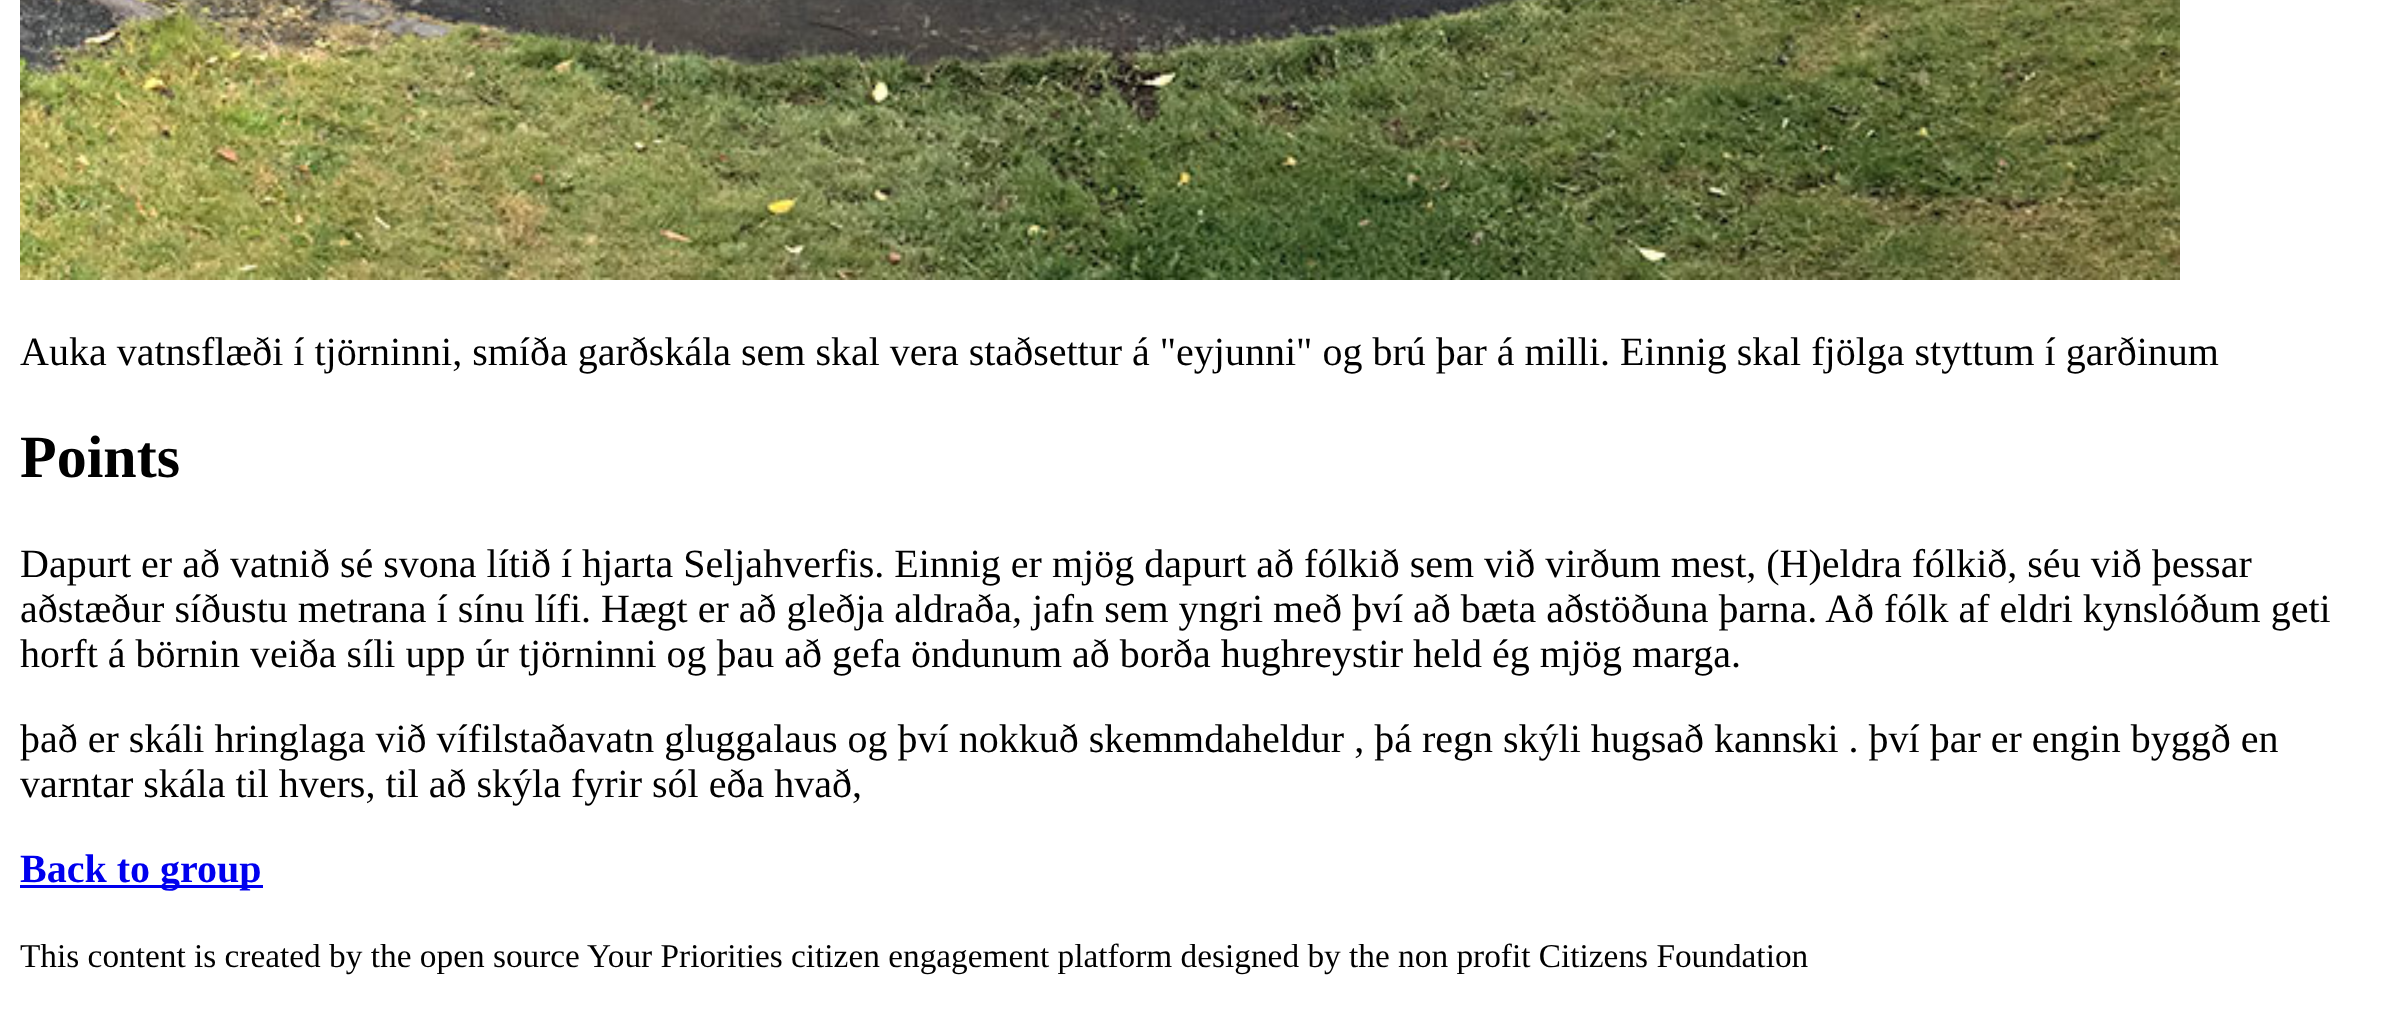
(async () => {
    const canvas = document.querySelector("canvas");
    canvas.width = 2403;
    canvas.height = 1033;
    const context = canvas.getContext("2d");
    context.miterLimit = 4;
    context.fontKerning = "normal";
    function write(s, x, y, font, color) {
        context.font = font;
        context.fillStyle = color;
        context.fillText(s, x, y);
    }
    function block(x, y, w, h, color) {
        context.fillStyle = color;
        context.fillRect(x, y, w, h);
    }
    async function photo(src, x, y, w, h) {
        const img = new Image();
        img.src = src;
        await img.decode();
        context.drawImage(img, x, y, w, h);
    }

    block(0, 0, 2403, 1033, "rgb(255, 255, 255)");
    await photo("media/1.png", 20, 0, 2160, 280);
    write("Auka vatnsflæði í tjörninni, smíða garðskála sem skal vera staðsettur á \"eyjunni\" og brú þar á milli. Einnig skal fjölga styttum í garðinum", 20, 365, "40px Liberation Serif", "rgb(0, 0, 0)");
    write("Points", 20, 477, "bold 60px Liberation Serif", "rgb(0, 0, 0)");
    write("Dapurt er að vatnið sé svona lítið í hjarta Seljahverfis. Einnig er mjög dapurt að fólkið sem við virðum mest, (H)eldra fólkið, séu við þessar", 20, 577, "40px Liberation Serif", "rgb(0, 0, 0)");
    write("aðstæður síðustu metrana í sínu lífi. Hægt er að gleðja aldraða, jafn sem yngri með því að bæta aðstöðuna þarna. Að fólk af eldri kynslóðum geti", 20, 622, "40px Liberation Serif", "rgb(0, 0, 0)");
    write("horft á börnin veiða síli upp úr tjörninni og þau að gefa öndunum að borða hughreystir held ég mjög marga.", 20, 667, "40px Liberation Serif", "rgb(0, 0, 0)");
    write("það er skáli hringlaga við vífilstaðavatn gluggalaus og því nokkuð skemmdaheldur , þá regn skýli hugsað kannski . því þar er engin byggð en", 20, 752, "40px Liberation Serif", "rgb(0, 0, 0)");
    write("varntar skála til hvers, til að skýla fyrir sól eða hvað,", 20, 797, "40px Liberation Serif", "rgb(0, 0, 0)");
    block(20, 885, 243, 3, "rgb(0, 0, 238)");
    write("Back to group", 20, 882, "bold 40px Liberation Serif", "rgb(0, 0, 238)");
    write("This content is created by the open source Your Priorities citizen engagement platform designed by the non profit Citizens Foundation", 20, 967, "33.33px Liberation Serif", "rgb(0, 0, 0)");
})();
